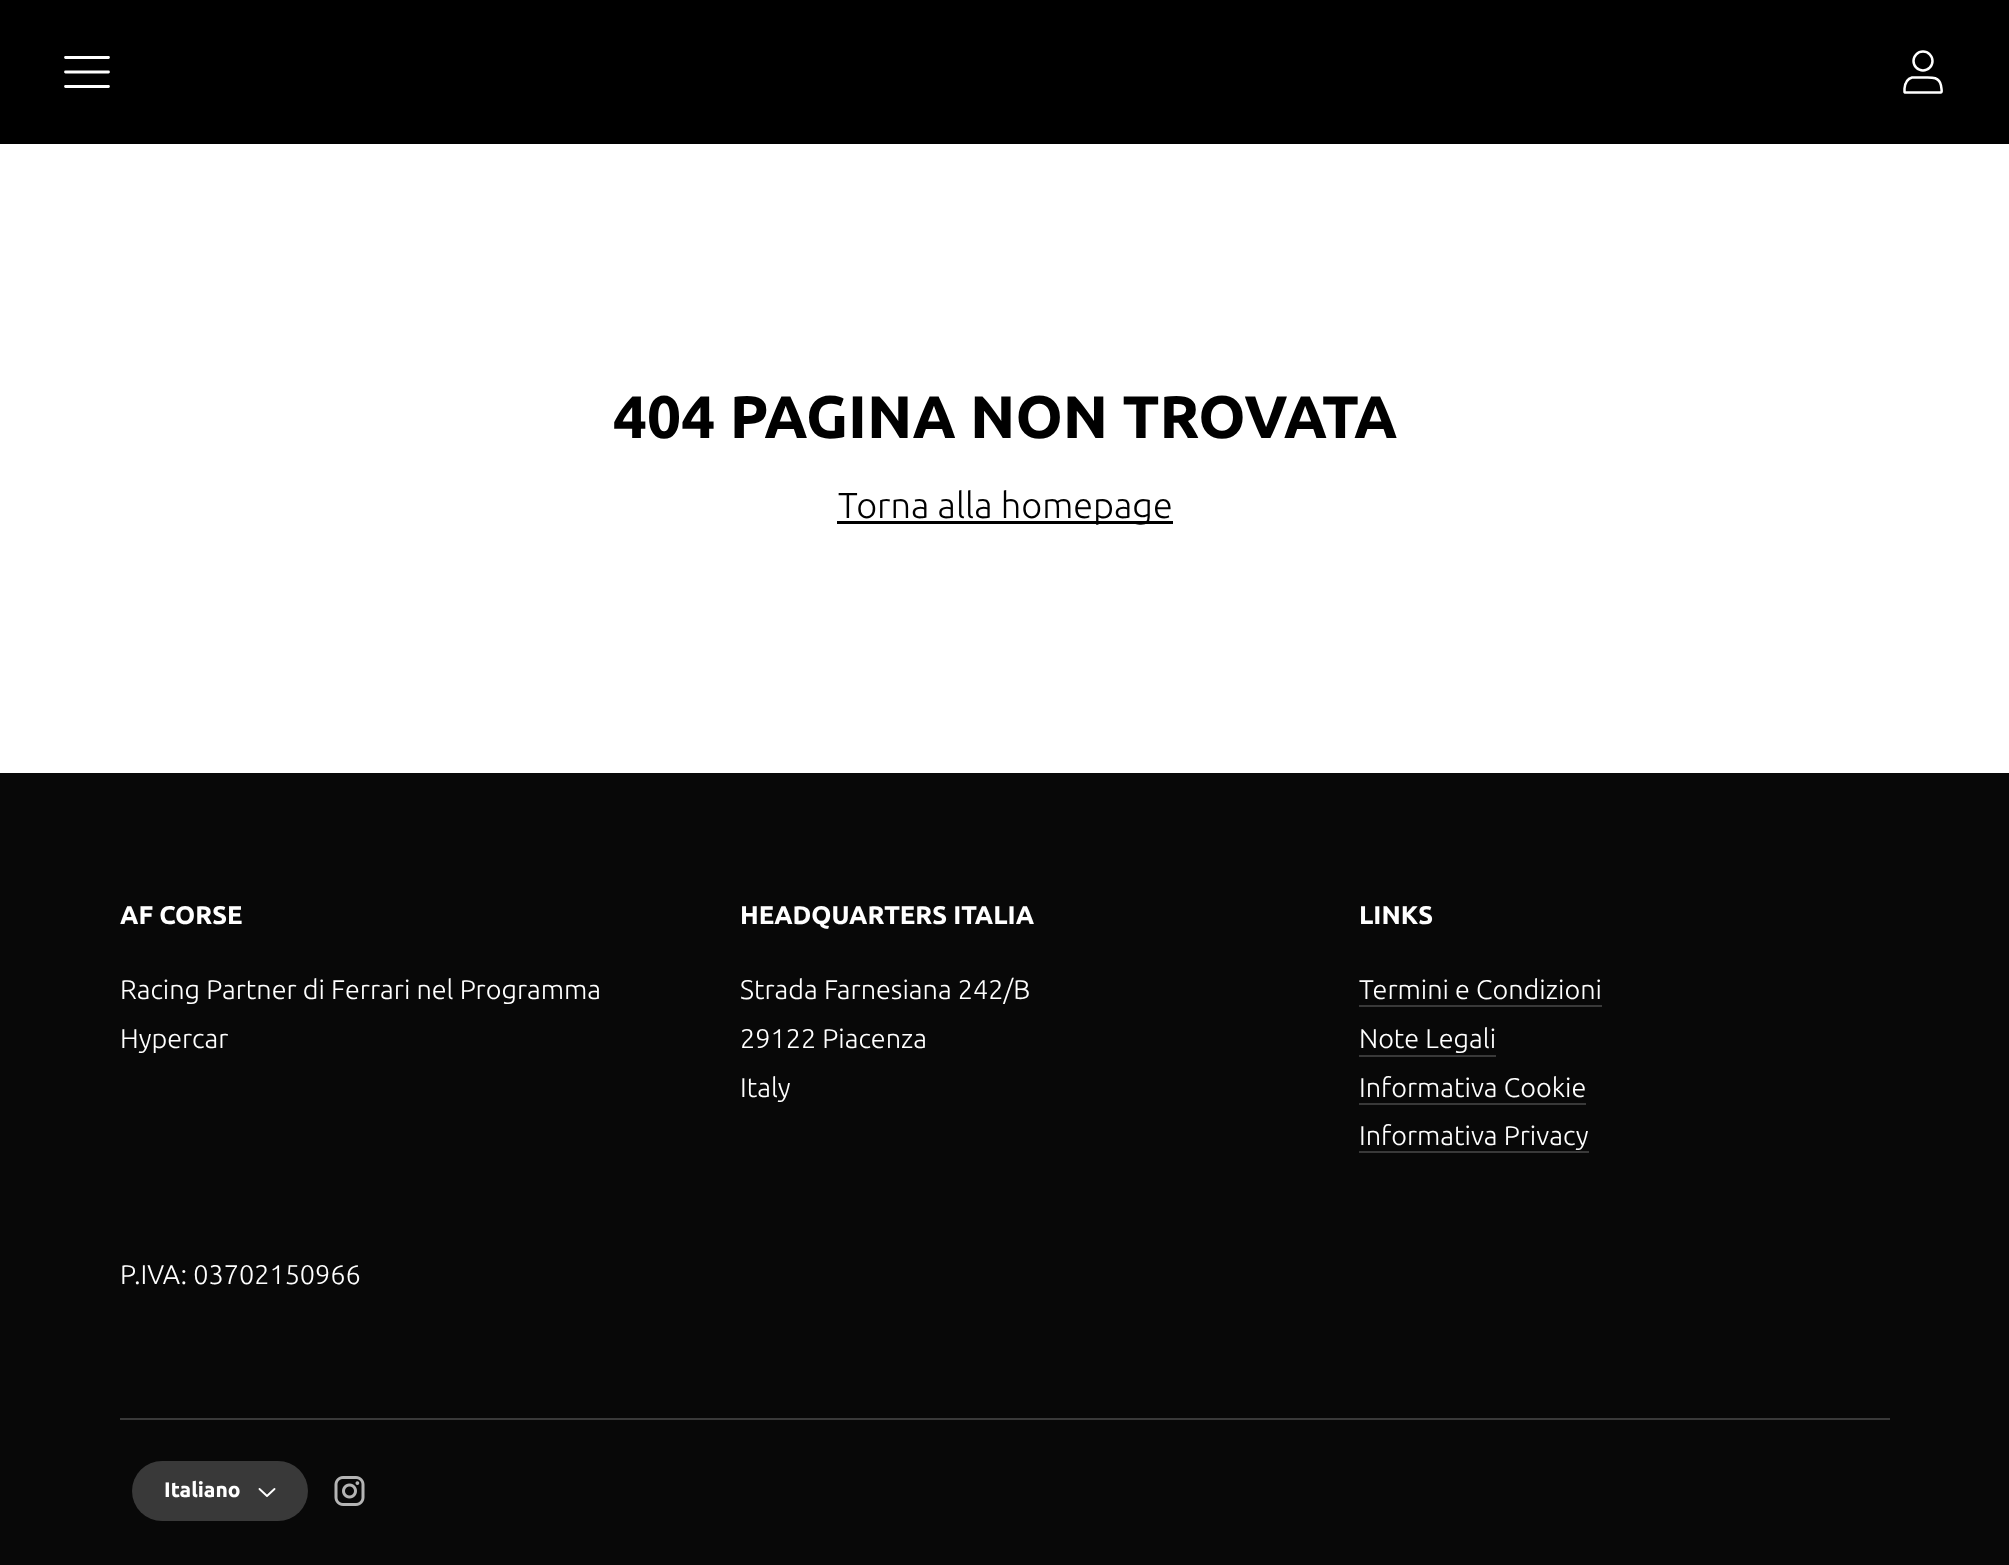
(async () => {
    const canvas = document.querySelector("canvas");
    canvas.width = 2009;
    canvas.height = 1565;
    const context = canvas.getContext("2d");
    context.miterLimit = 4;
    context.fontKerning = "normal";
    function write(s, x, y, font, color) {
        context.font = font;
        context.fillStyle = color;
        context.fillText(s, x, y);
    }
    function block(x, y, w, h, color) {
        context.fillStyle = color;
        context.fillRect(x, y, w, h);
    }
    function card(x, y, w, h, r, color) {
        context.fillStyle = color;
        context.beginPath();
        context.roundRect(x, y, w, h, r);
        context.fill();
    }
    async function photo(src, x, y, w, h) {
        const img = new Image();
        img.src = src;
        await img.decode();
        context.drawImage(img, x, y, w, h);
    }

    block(0, 0, 2009, 1565, "rgb(255, 255, 255)");
    block(0, 0, 2009, 144, "rgb(0, 0, 0)");
    context.beginPath();
    context.moveTo(65.5, 72);
    context.lineTo(108.5, 72);
    context.moveTo(65.5, 57.5);
    context.lineTo(108.5, 57.5);
    context.moveTo(65.5, 86.5);
    context.lineTo(108.5, 86.5);
    context.strokeStyle = "rgb(255, 255, 255)";
    context.lineWidth = 2.8;
    context.lineCap = "round";
    context.lineJoin = "round";
    context.stroke();
    context.beginPath();
    context.arc(1923, 61, 9.5, 0, Math.PI * 2);
    context.lineWidth = 2.5;
    context.stroke();
    context.beginPath();
    context.moveTo(1941, 92.5);
    context.bezierCurveTo(1942.5, 92.5, 1941, 86.5, 1941, 85.5);
    context.bezierCurveTo(1939, 76, 1930.5, 77.5, 1923, 77.5);
    context.lineTo(1912, 77.5);
    context.bezierCurveTo(1906.5, 79, 1905, 83.5, 1904.5, 88.5);
    context.lineTo(1904.5, 92);
    context.lineTo(1905, 92.5);
    context.closePath();
    context.stroke();
    write("404 PAGINA NON TROVATA", 613, 438, "bold 60px Ubuntu", "rgb(0, 0, 0)");
    block(837, 521, 336, 3, "rgb(0, 0, 0)");
    write("Torna alla homepage", 838, 518, "300 36px Ubuntu", "rgb(0, 0, 0)");
    block(0, 773, 2009, 792, "rgb(8, 8, 8)");
    write("AF CORSE", 120, 924, "bold 25.5px Ubuntu", "rgb(255, 255, 255)");
    write("Racing Partner di Ferrari nel Programma", 120, 999, "300 27px Ubuntu", "rgb(255, 255, 255)");
    write("Hypercar", 120, 1048, "300 27px Ubuntu", "rgb(255, 255, 255)");
    write("HEADQUARTERS ITALIA", 740, 924, "bold 25.5px Ubuntu", "rgb(255, 255, 255)");
    write("Strada Farnesiana 242/B", 740, 999, "300 27px Ubuntu", "rgb(255, 255, 255)");
    write("29122 Piacenza", 740, 1048, "300 27px Ubuntu", "rgb(255, 255, 255)");
    write("Italy", 740, 1097, "300 27px Ubuntu", "rgb(255, 255, 255)");
    write("LINKS", 1359, 924, "bold 25.5px Ubuntu", "rgb(255, 255, 255)");
    write("Termini e Condizioni", 1359, 999, "300 27px Ubuntu", "rgb(255, 255, 255)");
    block(1359, 1005, 243, 2, "rgb(57, 57, 57)");
    write("Note Legali", 1359, 1048, "300 27px Ubuntu", "rgb(255, 255, 255)");
    block(1359, 1055, 137, 2, "rgb(57, 57, 57)");
    write("Informativa Cookie", 1359, 1097, "300 27px Ubuntu", "rgb(255, 255, 255)");
    block(1359, 1103, 227, 2, "rgb(57, 57, 57)");
    write("Informativa Privacy", 1359, 1145, "300 27px Ubuntu", "rgb(255, 255, 255)");
    block(1359, 1151, 230, 2, "rgb(57, 57, 57)");
    write("P.IVA: 03702150966", 120, 1284, "300 27px Ubuntu", "rgb(255, 255, 255)");
    block(120, 1418, 1770, 2, "rgb(57, 57, 57)");
    card(132, 1461, 176, 60, 30, "rgb(57, 57, 57)");
    write("Italiano", 164, 1497, "bold 21px Ubuntu", "rgb(255, 255, 255)");
    context.beginPath();
    context.moveTo(259.5, 1489);
    context.lineTo(267, 1496);
    context.lineTo(274.5, 1489);
    context.lineWidth = 1.9;
    context.stroke();
    await photo("media/1.png", 334, 1476, 31, 30);
})();
